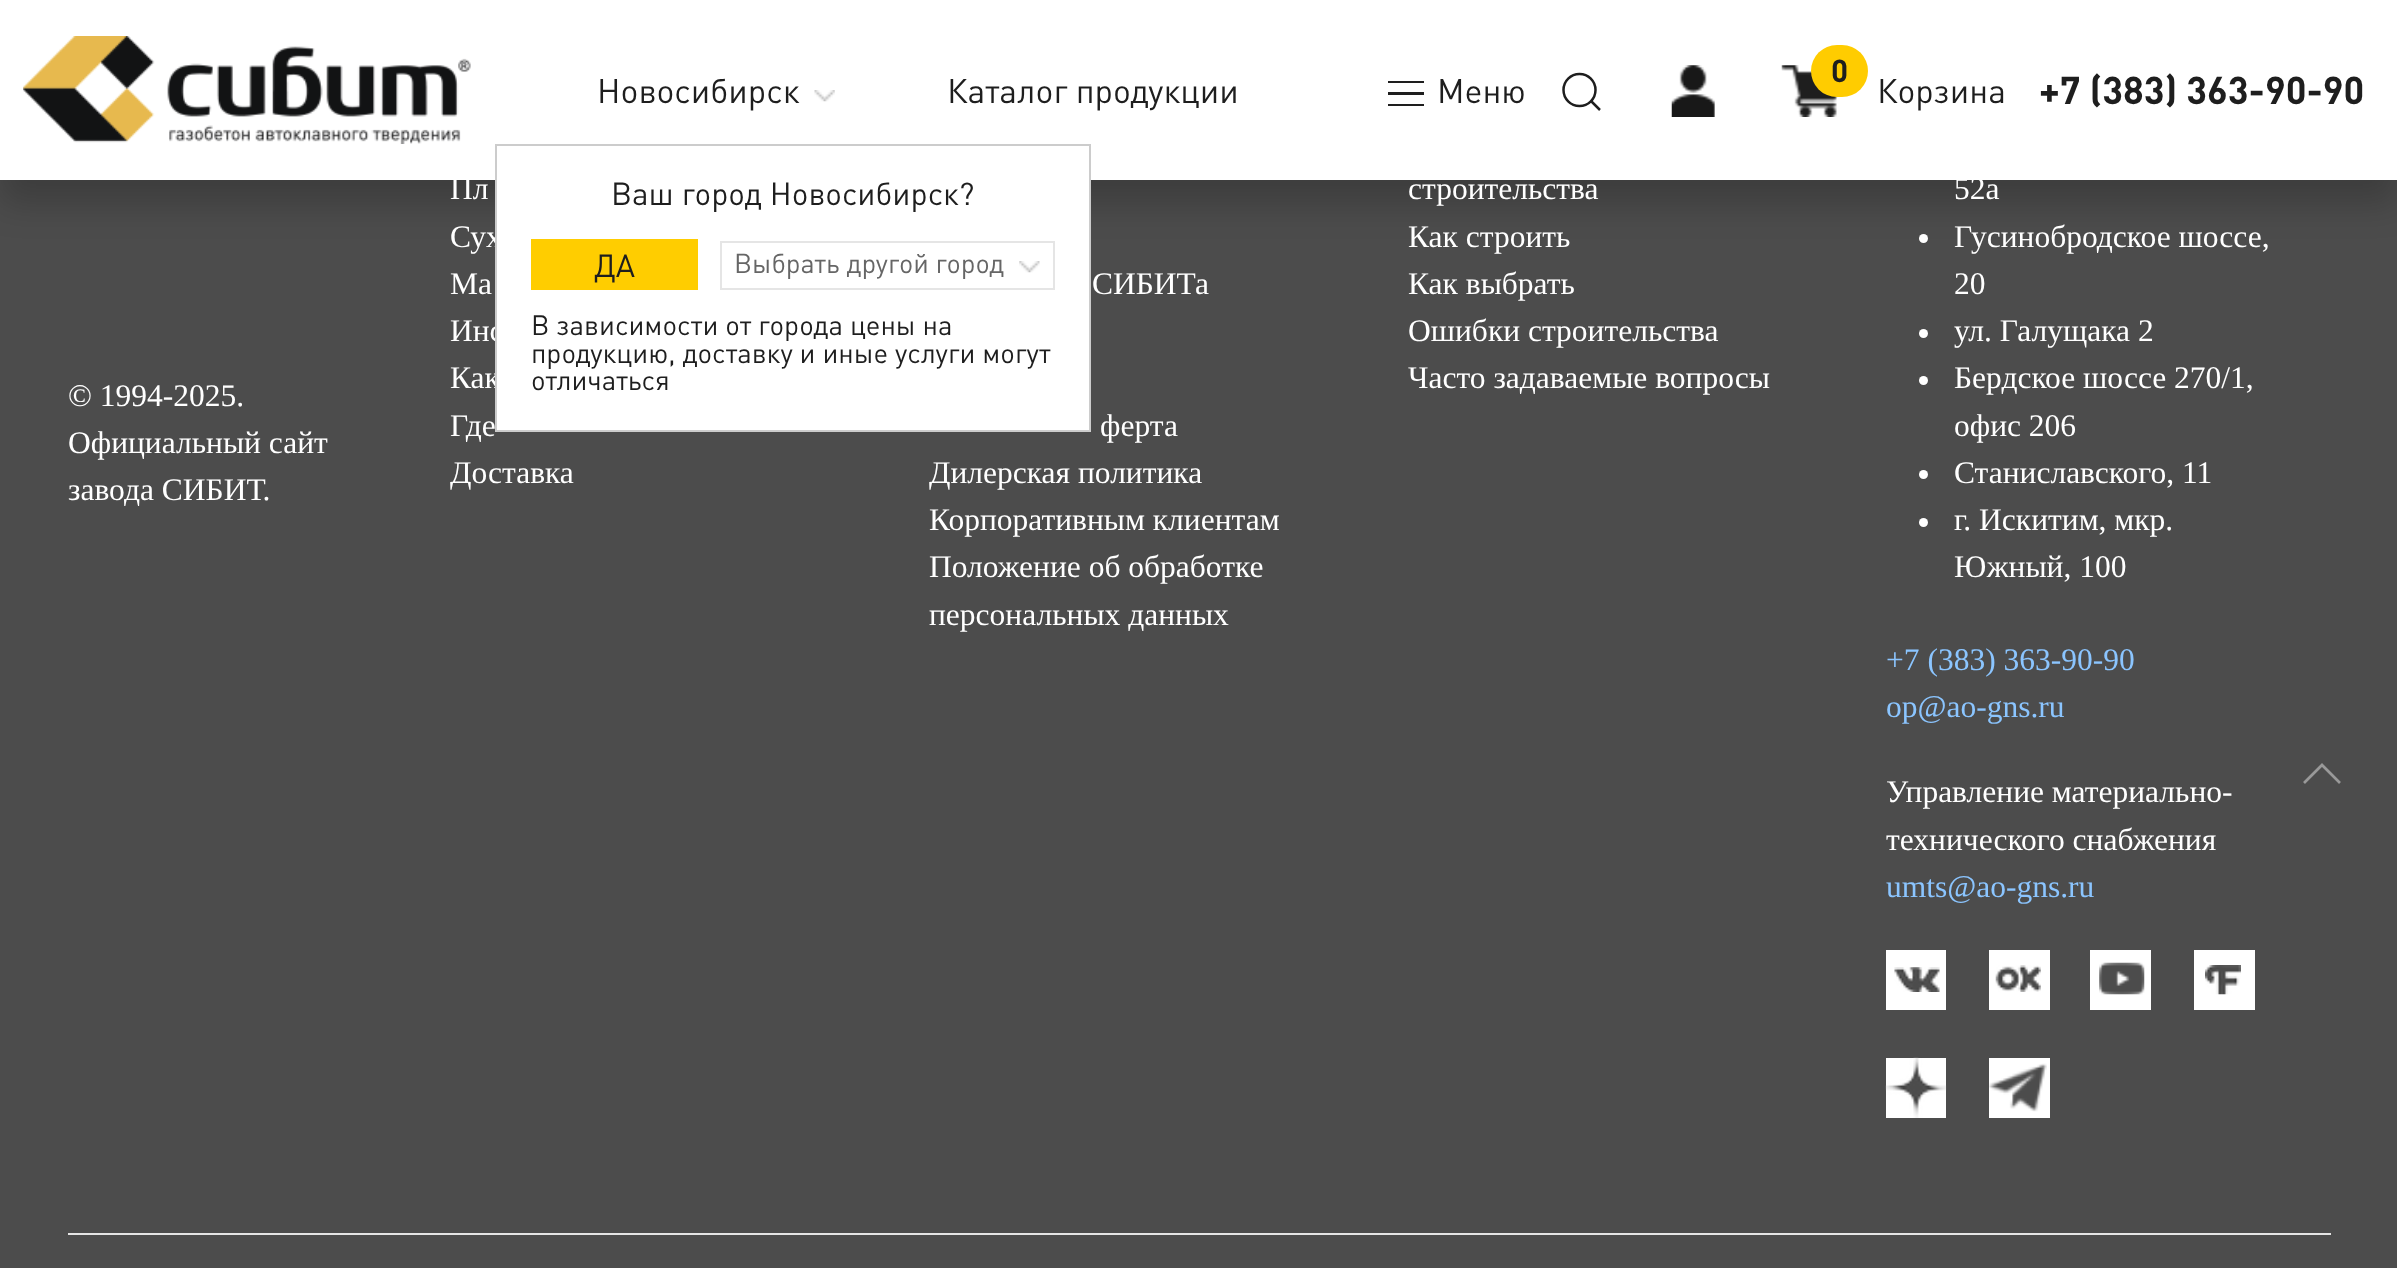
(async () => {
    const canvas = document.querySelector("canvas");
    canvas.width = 2397;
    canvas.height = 1268;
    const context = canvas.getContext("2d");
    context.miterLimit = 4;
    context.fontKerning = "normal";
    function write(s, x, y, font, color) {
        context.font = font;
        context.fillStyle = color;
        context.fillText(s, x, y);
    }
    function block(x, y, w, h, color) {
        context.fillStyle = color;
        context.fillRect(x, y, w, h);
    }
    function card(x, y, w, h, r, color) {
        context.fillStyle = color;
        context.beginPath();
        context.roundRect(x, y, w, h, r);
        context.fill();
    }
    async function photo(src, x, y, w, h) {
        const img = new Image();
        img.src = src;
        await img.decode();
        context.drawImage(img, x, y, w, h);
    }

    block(0, 0, 2397, 1268, "rgb(76, 76, 76)");
    context.fillStyle = "rgb(255, 255, 255)";
    context.beginPath();
    context.arc(1923.5, 238.5, 4.5, 0, Math.PI * 2);
    context.fill();
    context.fillStyle = "rgba(0, 0, 0, 0.2)";
    context.filter = "blur(17px)";
    context.beginPath();
    context.rect(0, 23, 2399, 180);
    context.fill();
    context.filter = "none";
    block(0, 0, 2397, 180, "rgb(255, 255, 255)");
    await photo("media/1.png", 23, 36, 448, 108);
    await photo("media/2.png", 814, 90, 21, 12);
    write("Новосибирск", 597, 103, "33.75px DIN", "rgb(30, 30, 30)");
    block(497, 180, 592, 250, "rgb(255, 255, 255)");
    write("Сух", 450, 247, "31.5px Liberation Serif", "rgb(255, 255, 255)");
    write("Инс", 450, 341, "31.5px Liberation Serif", "rgb(255, 255, 255)");
    write("Как", 450, 388, "31.5px Liberation Serif", "rgb(255, 255, 255)");
    write("Где", 450, 436, "31.5px Liberation Serif", "rgb(255, 255, 255)");
    context.strokeStyle = "rgb(204, 204, 204)";
    context.lineWidth = 2;
    context.strokeRect(496, 145, 594, 286);
    write("Ваш город Новосибирск?", 611, 205, "31.5px DIN", "rgb(30, 30, 30)");
    block(531, 239, 167, 51, "rgb(255, 205, 0)");
    write("ДА", 594, 277, "31.5px DIN", "rgb(30, 30, 30)");
    await photo("media/3.png", 1019, 261, 21, 12);
    context.strokeStyle = "rgb(229, 229, 229)";
    context.strokeRect(721, 242, 333, 47);
    write("Выбрать другой город", 734, 273, "27px DIN", "rgb(102, 102, 102)");
    write("В зависимости от города цены на", 531, 335, "27.6px DIN", "rgb(30, 30, 30)");
    write("продукцию, доставку и иные услуги могут", 531, 363, "27.6px DIN", "rgb(30, 30, 30)");
    write("отличаться", 531, 390, "27.6px DIN", "rgb(30, 30, 30)");
    write("Каталог продукции", 947, 103, "33.75px DIN", "rgb(30, 30, 30)");
    block(1388, 81, 36, 2, "rgb(30, 30, 30)");
    block(1388, 92, 36, 3, "rgb(30, 30, 30)");
    block(1388, 104, 36, 2, "rgb(30, 30, 30)");
    write("Меню", 1437, 103, "33.75px DIN", "rgb(30, 30, 30)");
    context.beginPath();
    context.arc(1579.5, 90, 16, 0, Math.PI * 2);
    context.strokeStyle = "rgb(30, 30, 30)";
    context.lineWidth = 2.5;
    context.stroke();
    context.beginPath();
    context.moveTo(1591, 101);
    context.lineTo(1600, 110);
    context.closePath();
    context.stroke();
    await photo("media/4.png", 1671, 65, 44, 52);
    await photo("media/5.png", 1781, 65, 57, 52);
    card(1811, 45, 57, 52, 26, "rgb(255, 204, 0)");
    write("0", 1831, 82, "bold 31.5px DIN", "rgb(30, 30, 30)");
    write("Корзина", 1877, 103, "33.75px DIN", "rgb(30, 30, 30)");
    write("+7 (383) 363-90-90", 2039, 104, "bold 38.25px DIN", "rgb(30, 30, 30)");
    write("© 1994-2025.", 68, 406, "31.5px Liberation Serif", "rgb(255, 255, 255)");
    write("Официальный сайт", 68, 453, "31.5px Liberation Serif", "rgb(255, 255, 255)");
    write("завода СИБИТ.", 68, 500, "31.5px Liberation Serif", "rgb(255, 255, 255)");
    write("Пл", 450, 199, "31.5px Liberation Serif", "rgb(255, 255, 255)");
    write("Ма", 450, 294, "31.5px Liberation Serif", "rgb(255, 255, 255)");
    write("Доставка", 450, 483, "31.5px Liberation Serif", "rgb(255, 255, 255)");
    write("СИБИТа", 1092, 294, "31.5px Liberation Serif", "rgb(255, 255, 255)");
    write("ферта", 1100, 436, "31.5px Liberation Serif", "rgb(255, 255, 255)");
    write("Дилерская политика", 929, 483, "31.5px Liberation Serif", "rgb(255, 255, 255)");
    write("Корпоративным клиентам", 929, 530, "31.5px Liberation Serif", "rgb(255, 255, 255)");
    write("Положение об обработке", 929, 577, "31.5px Liberation Serif", "rgb(255, 255, 255)");
    write("персональных данных", 929, 625, "31.5px Liberation Serif", "rgb(255, 255, 255)");
    write("строительства", 1408, 199, "31.5px Liberation Serif", "rgb(255, 255, 255)");
    write("Как строить", 1408, 247, "31.5px Liberation Serif", "rgb(255, 255, 255)");
    write("Как выбрать", 1408, 294, "31.5px Liberation Serif", "rgb(255, 255, 255)");
    write("Ошибки строительства", 1408, 341, "31.5px Liberation Serif", "rgb(255, 255, 255)");
    write("Часто задаваемые вопросы", 1408, 388, "31.5px Liberation Serif", "rgb(255, 255, 255)");
    write("52а", 1954, 199, "31.5px Liberation Serif", "rgb(255, 255, 255)");
    write("Гусинобродское шоссе,", 1954, 247, "31.5px Liberation Serif", "rgb(255, 255, 255)");
    write("20", 1954, 294, "31.5px Liberation Serif", "rgb(255, 255, 255)");
    context.beginPath();
    context.arc(1923.5, 333.5, 4.5, 0, Math.PI * 2);
    context.fill();
    write("ул. Галущака 2", 1954, 341, "31.5px Liberation Serif", "rgb(255, 255, 255)");
    context.beginPath();
    context.arc(1923.5, 380.5, 4.5, 0, Math.PI * 2);
    context.fill();
    write("Бердское шоссе 270/1,", 1954, 388, "31.5px Liberation Serif", "rgb(255, 255, 255)");
    write("офис 206", 1954, 436, "31.5px Liberation Serif", "rgb(255, 255, 255)");
    context.beginPath();
    context.arc(1923.5, 474.5, 4.5, 0, Math.PI * 2);
    context.fill();
    write("Станиславского, 11", 1954, 483, "31.5px Liberation Serif", "rgb(255, 255, 255)");
    context.beginPath();
    context.arc(1923.5, 522.5, 4.5, 0, Math.PI * 2);
    context.fill();
    write("г. Искитим, мкр.", 1954, 530, "31.5px Liberation Serif", "rgb(255, 255, 255)");
    write("Южный, 100", 1954, 577, "31.5px Liberation Serif", "rgb(255, 255, 255)");
    write("+7 (383) 363-90-90", 1886, 670, "31.5px Liberation Serif", "rgb(139, 197, 255)");
    write("op@ao-gns.ru", 1886, 717, "31.5px Liberation Serif", "rgb(139, 197, 255)");
    write("Управление материально-", 1886, 802, "31.5px Liberation Serif", "rgb(255, 255, 255)");
    write("технического снабжения", 1886, 850, "31.5px Liberation Serif", "rgb(255, 255, 255)");
    write("umts@ao-gns.ru", 1886, 897, "31.5px Liberation Serif", "rgb(139, 197, 255)");
    block(1886, 950, 60, 60, "rgb(255, 255, 255)");
    await photo("media/6.png", 1894, 967, 46, 25);
    block(1989, 950, 61, 60, "rgb(255, 255, 255)");
    await photo("media/7.png", 1995, 965, 46, 27);
    block(2090, 950, 61, 60, "rgb(255, 255, 255)");
    await photo("media/8.png", 2099, 962, 46, 33);
    block(2194, 950, 61, 60, "rgb(255, 255, 255)");
    await photo("media/9.png", 2205, 965, 36, 30);
    block(1886, 1058, 60, 60, "rgb(255, 255, 255)");
    await photo("media/10.png", 1885, 1057, 62, 61);
    block(1989, 1058, 61, 60, "rgb(255, 255, 255)");
    await photo("media/11.png", 1989, 1063, 58, 49);
    block(68, 1233, 2263, 2, "rgb(229, 229, 229)");
    context.beginPath();
    context.moveTo(2304, 783);
    context.lineTo(2322, 765);
    context.lineTo(2340, 783);
    context.strokeStyle = "rgb(153, 153, 153)";
    context.lineWidth = 2.7;
    context.stroke();
})();
